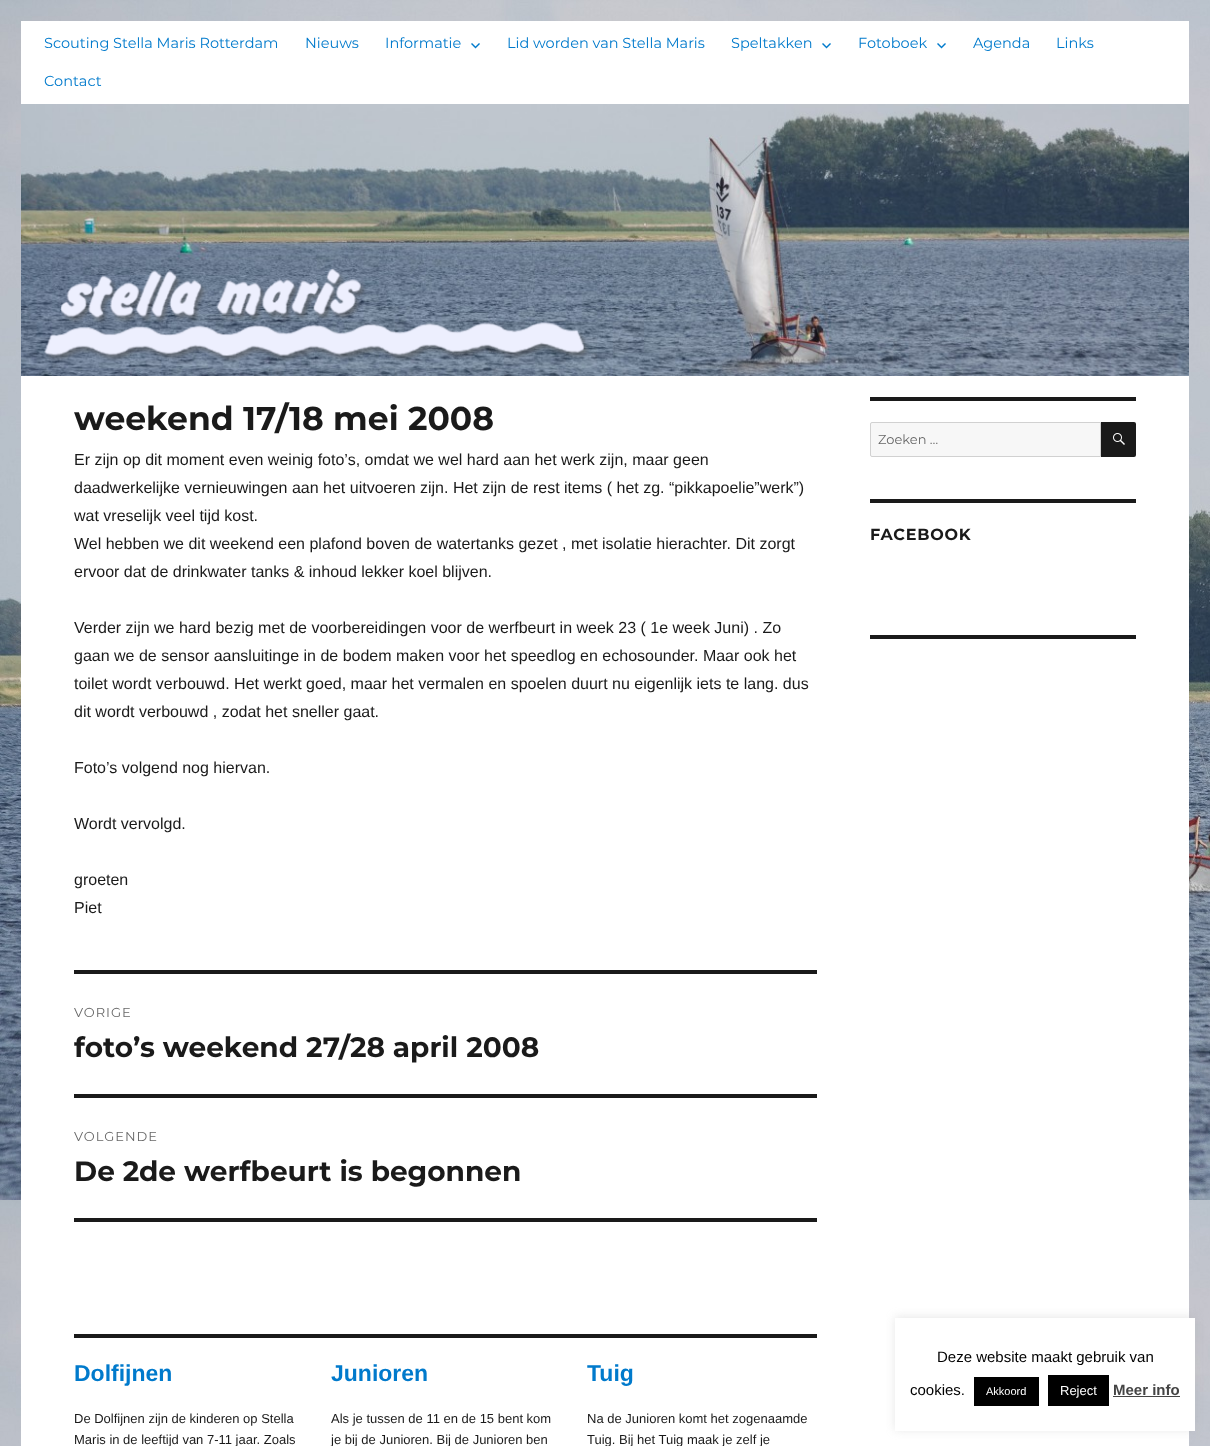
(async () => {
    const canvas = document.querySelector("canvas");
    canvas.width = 1210;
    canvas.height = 1446;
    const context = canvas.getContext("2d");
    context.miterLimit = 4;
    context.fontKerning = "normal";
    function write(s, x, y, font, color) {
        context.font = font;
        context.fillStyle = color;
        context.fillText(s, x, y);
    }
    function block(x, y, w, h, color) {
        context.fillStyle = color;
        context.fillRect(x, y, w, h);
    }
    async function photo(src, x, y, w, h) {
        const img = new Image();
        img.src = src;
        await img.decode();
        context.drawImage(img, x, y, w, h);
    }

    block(0, 0, 1210, 1446, "rgb(255, 255, 255)");
    await photo("media/1.png", 0, 0, 1210, 1446);
    block(21, 21, 1168, 1425, "rgb(255, 255, 255)");
    write("Scouting Stella Maris Rotterdam", 44, 48, "100 14.5px Montserrat", "rgb(0, 122, 204)");
    write("Nieuws", 305, 48, "100 14.5px Montserrat", "rgb(0, 122, 204)");
    write("Informatie", 385, 48, "100 14.5px Montserrat", "rgb(0, 122, 204)");
    await photo("media/2.png", 471, 43, 9, 6);
    write("Lid worden van Stella Maris", 507, 48, "100 14.5px Montserrat", "rgb(0, 122, 204)");
    write("Speltakken", 731, 48, "100 14.5px Montserrat", "rgb(0, 122, 204)");
    await photo("media/2.png", 822, 43, 9, 6);
    write("Fotoboek", 858, 48, "100 14.5px Montserrat", "rgb(0, 122, 204)");
    await photo("media/2.png", 937, 43, 9, 6);
    write("Agenda", 973, 48, "100 14.5px Montserrat", "rgb(0, 122, 204)");
    write("Links", 1056, 48, "100 14.5px Montserrat", "rgb(0, 122, 204)");
    write("Contact", 44, 86, "100 14.5px Montserrat", "rgb(0, 122, 204)");
    await photo("media/3.png", 21, 104, 1168, 272);
    await photo("media/4.png", 44, 268, 545, 94);
    write("weekend 17/18 mei 2008", 74, 430, "100 33px 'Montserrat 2'", "rgb(26, 26, 26)");
    write("Er zijn op dit moment even weinig foto’s, omdat we wel hard aan het werk zijn, maar geen", 74, 465, "16px Liberation Sans", "rgb(26, 26, 26)");
    write("daadwerkelijke vernieuwingen aan het uitvoeren zijn. Het zijn de rest items ( het zg. “pikkapoelie”werk”)", 74, 493, "16px Liberation Sans", "rgb(26, 26, 26)");
    write("wat vreselijk veel tijd kost.", 74, 521, "16px Liberation Sans", "rgb(26, 26, 26)");
    write("Wel hebben we dit weekend een plafond boven de watertanks gezet , met isolatie hierachter. Dit zorgt", 74, 549, "16px Liberation Sans", "rgb(26, 26, 26)");
    write("ervoor dat de drinkwater tanks & inhoud lekker koel blijven.", 74, 577, "16px Liberation Sans", "rgb(26, 26, 26)");
    write("Verder zijn we hard bezig met de voorbereidingen voor de werfbeurt in week 23 ( 1e week Juni) . Zo", 74, 633, "16px Liberation Sans", "rgb(26, 26, 26)");
    write("gaan we de sensor aansluitinge in de bodem maken voor het speedlog en echosounder. Maar ook het", 74, 661, "16px Liberation Sans", "rgb(26, 26, 26)");
    write("toilet wordt verbouwd. Het werkt goed, maar het vermalen en spoelen duurt nu eigenlijk iets te lang. dus", 74, 689, "16px Liberation Sans", "rgb(26, 26, 26)");
    write("dit wordt verbouwd , zodat het sneller gaat.", 74, 717, "16px Liberation Sans", "rgb(26, 26, 26)");
    write("Foto’s volgend nog hiervan.", 74, 773, "16px Liberation Sans", "rgb(26, 26, 26)");
    write("Wordt vervolgd.", 74, 829, "16px Liberation Sans", "rgb(26, 26, 26)");
    write("groeten", 74, 885, "16px Liberation Sans", "rgb(26, 26, 26)");
    write("Piet", 74, 913, "16px Liberation Sans", "rgb(26, 26, 26)");
    block(74, 970, 743, 4, "rgb(26, 26, 26)");
    block(74, 1218, 743, 4, "rgb(26, 26, 26)");
    context.letterSpacing = "1px";
    write("VORIGE", 74, 1017, "100 13px Montserrat", "rgb(104, 104, 104)");
    context.letterSpacing = "0px";
    write("foto’s weekend 27/28 april 2008", 74, 1057, "100 28px 'Montserrat 2'", "rgb(26, 26, 26)");
    block(74, 1094, 743, 4, "rgb(26, 26, 26)");
    context.letterSpacing = "1px";
    write("VOLGENDE", 74, 1141, "100 13px Montserrat", "rgb(104, 104, 104)");
    context.letterSpacing = "0px";
    write("De 2de werfbeurt is begonnen", 74, 1181, "100 28px 'Montserrat 2'", "rgb(26, 26, 26)");
    block(74, 1334, 743, 4, "rgb(26, 26, 26)");
    write("Dolfijnen", 74, 1381, "bold 23px Liberation Sans", "rgb(0, 122, 204)");
    write("De Dolfijnen zijn de kinderen op Stella", 74, 1423, "13px Liberation Sans", "rgb(26, 26, 26)");
    write("Maris in de leeftijd van 7-11 jaar. Zoals", 74, 1444, "13px Liberation Sans", "rgb(26, 26, 26)");
    write("Junioren", 331, 1381, "bold 23px Liberation Sans", "rgb(0, 122, 204)");
    write("Als je tussen de 11 en de 15 bent kom", 331, 1423, "13px Liberation Sans", "rgb(26, 26, 26)");
    write("je bij de Junioren. Bij de Junioren ben", 331, 1444, "13px Liberation Sans", "rgb(26, 26, 26)");
    write("Tuig", 587, 1381, "bold 23px Liberation Sans", "rgb(0, 122, 204)");
    write("Na de Junioren komt het zogenaamde", 587, 1423, "13px Liberation Sans", "rgb(26, 26, 26)");
    write("Tuig. Bij het Tuig maak je zelf je", 587, 1444, "13px Liberation Sans", "rgb(26, 26, 26)");
    block(870, 397, 266, 4, "rgb(26, 26, 26)");
    context.fillStyle = "rgb(247, 247, 247)";
    context.beginPath();
    context.roundRect(870.5, 422.5, 230, 34, [1.5, 0, 0, 1.5]);
    context.fill();
    context.strokeStyle = "rgb(209, 209, 209)";
    context.stroke();
    write("Zoeken …", 878, 444, "100 13px Montserrat", "rgb(104, 104, 104)");
    context.fillStyle = "rgb(26, 26, 26)";
    context.beginPath();
    context.roundRect(1101, 422, 35, 35, [0, 2, 2, 0]);
    context.fill();
    await photo("media/5.png", 1113, 433, 12, 12);
    block(870, 499, 266, 4, "rgb(26, 26, 26)");
    context.letterSpacing = "0.75px";
    write("FACEBOOK", 870, 540, "100 16px 'Montserrat 2'", "rgb(26, 26, 26)");
    block(870, 635, 266, 4, "rgb(26, 26, 26)");
    context.fillStyle = "rgba(172, 171, 171, 0.3)";
    context.filter = "blur(5px)";
    context.beginPath();
    context.rect(895, 1317, 300, 113);
    context.fill();
    context.filter = "none";
    block(895, 1318, 300, 113, "rgb(255, 255, 255)");
    context.letterSpacing = "0px";
    write("Deze website maakt gebruik van", 937, 1362, "15px Liberation Sans", "rgb(0, 0, 0)");
    write("cookies.", 910, 1395, "15px Liberation Sans", "rgb(0, 0, 0)");
    block(974, 1377, 65, 29, "rgb(0, 0, 0)");
    write("Akkoord", 986, 1395, "11px Liberation Sans", "rgb(255, 255, 255)");
    block(1048, 1375, 61, 31, "rgb(0, 0, 0)");
    write("Reject", 1060, 1395, "13px Liberation Sans", "rgb(255, 255, 255)");
    write("Meer info", 1113, 1395, "bold 15px Liberation Sans", "rgb(68, 68, 68)");
    block(1113, 1396, 67, 1, "rgb(68, 68, 68)");
})();
